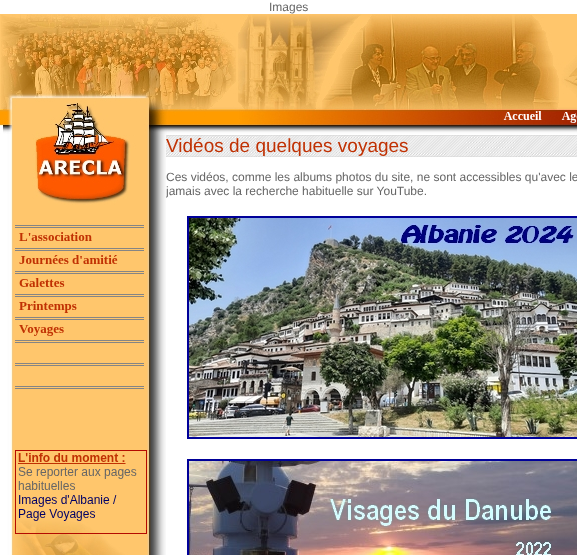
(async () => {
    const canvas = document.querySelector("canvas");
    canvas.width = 577;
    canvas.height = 555;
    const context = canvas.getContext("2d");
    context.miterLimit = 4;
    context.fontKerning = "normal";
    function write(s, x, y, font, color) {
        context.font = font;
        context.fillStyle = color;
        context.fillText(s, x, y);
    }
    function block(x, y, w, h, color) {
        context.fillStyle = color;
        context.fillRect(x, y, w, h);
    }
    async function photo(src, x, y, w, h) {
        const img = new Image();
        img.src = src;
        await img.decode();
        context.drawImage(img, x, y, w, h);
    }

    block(0, 0, 577, 555, "rgb(255, 255, 255)");
    write("Images", 269, 11, "12px Liberation Sans", "rgb(102, 102, 102)");
    await photo("media/1.png", 0, 14, 577, 95);
    await photo("media/2.png", 0, 109, 577, 26);
    write("jamais avec la recherche habituelle sur YouTube.", 166, 195, "12px Liberation Sans", "rgb(102, 102, 102)");
    await photo("media/3.png", 0, 135, 166, 420);
    await photo("media/4.png", 166, 135, 411, 22);
    write("Vidéos de quelques voyages", 166, 152, "19px Liberation Sans", "rgb(192, 49, 3)");
    write("Ces vidéos, comme les albums photos du site, ne sont accessibles qu'avec le", 166, 181, "12px Liberation Sans", "rgb(102, 102, 102)");
    context.strokeStyle = "rgb(0, 0, 153)";
    context.lineWidth = 2;
    context.strokeRect(188, 217, 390, 221);
    await photo("media/5.png", 189, 218, 388, 219);
    context.strokeRect(188, 460, 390, 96);
    await photo("media/6.png", 189, 461, 388, 94);
})();
